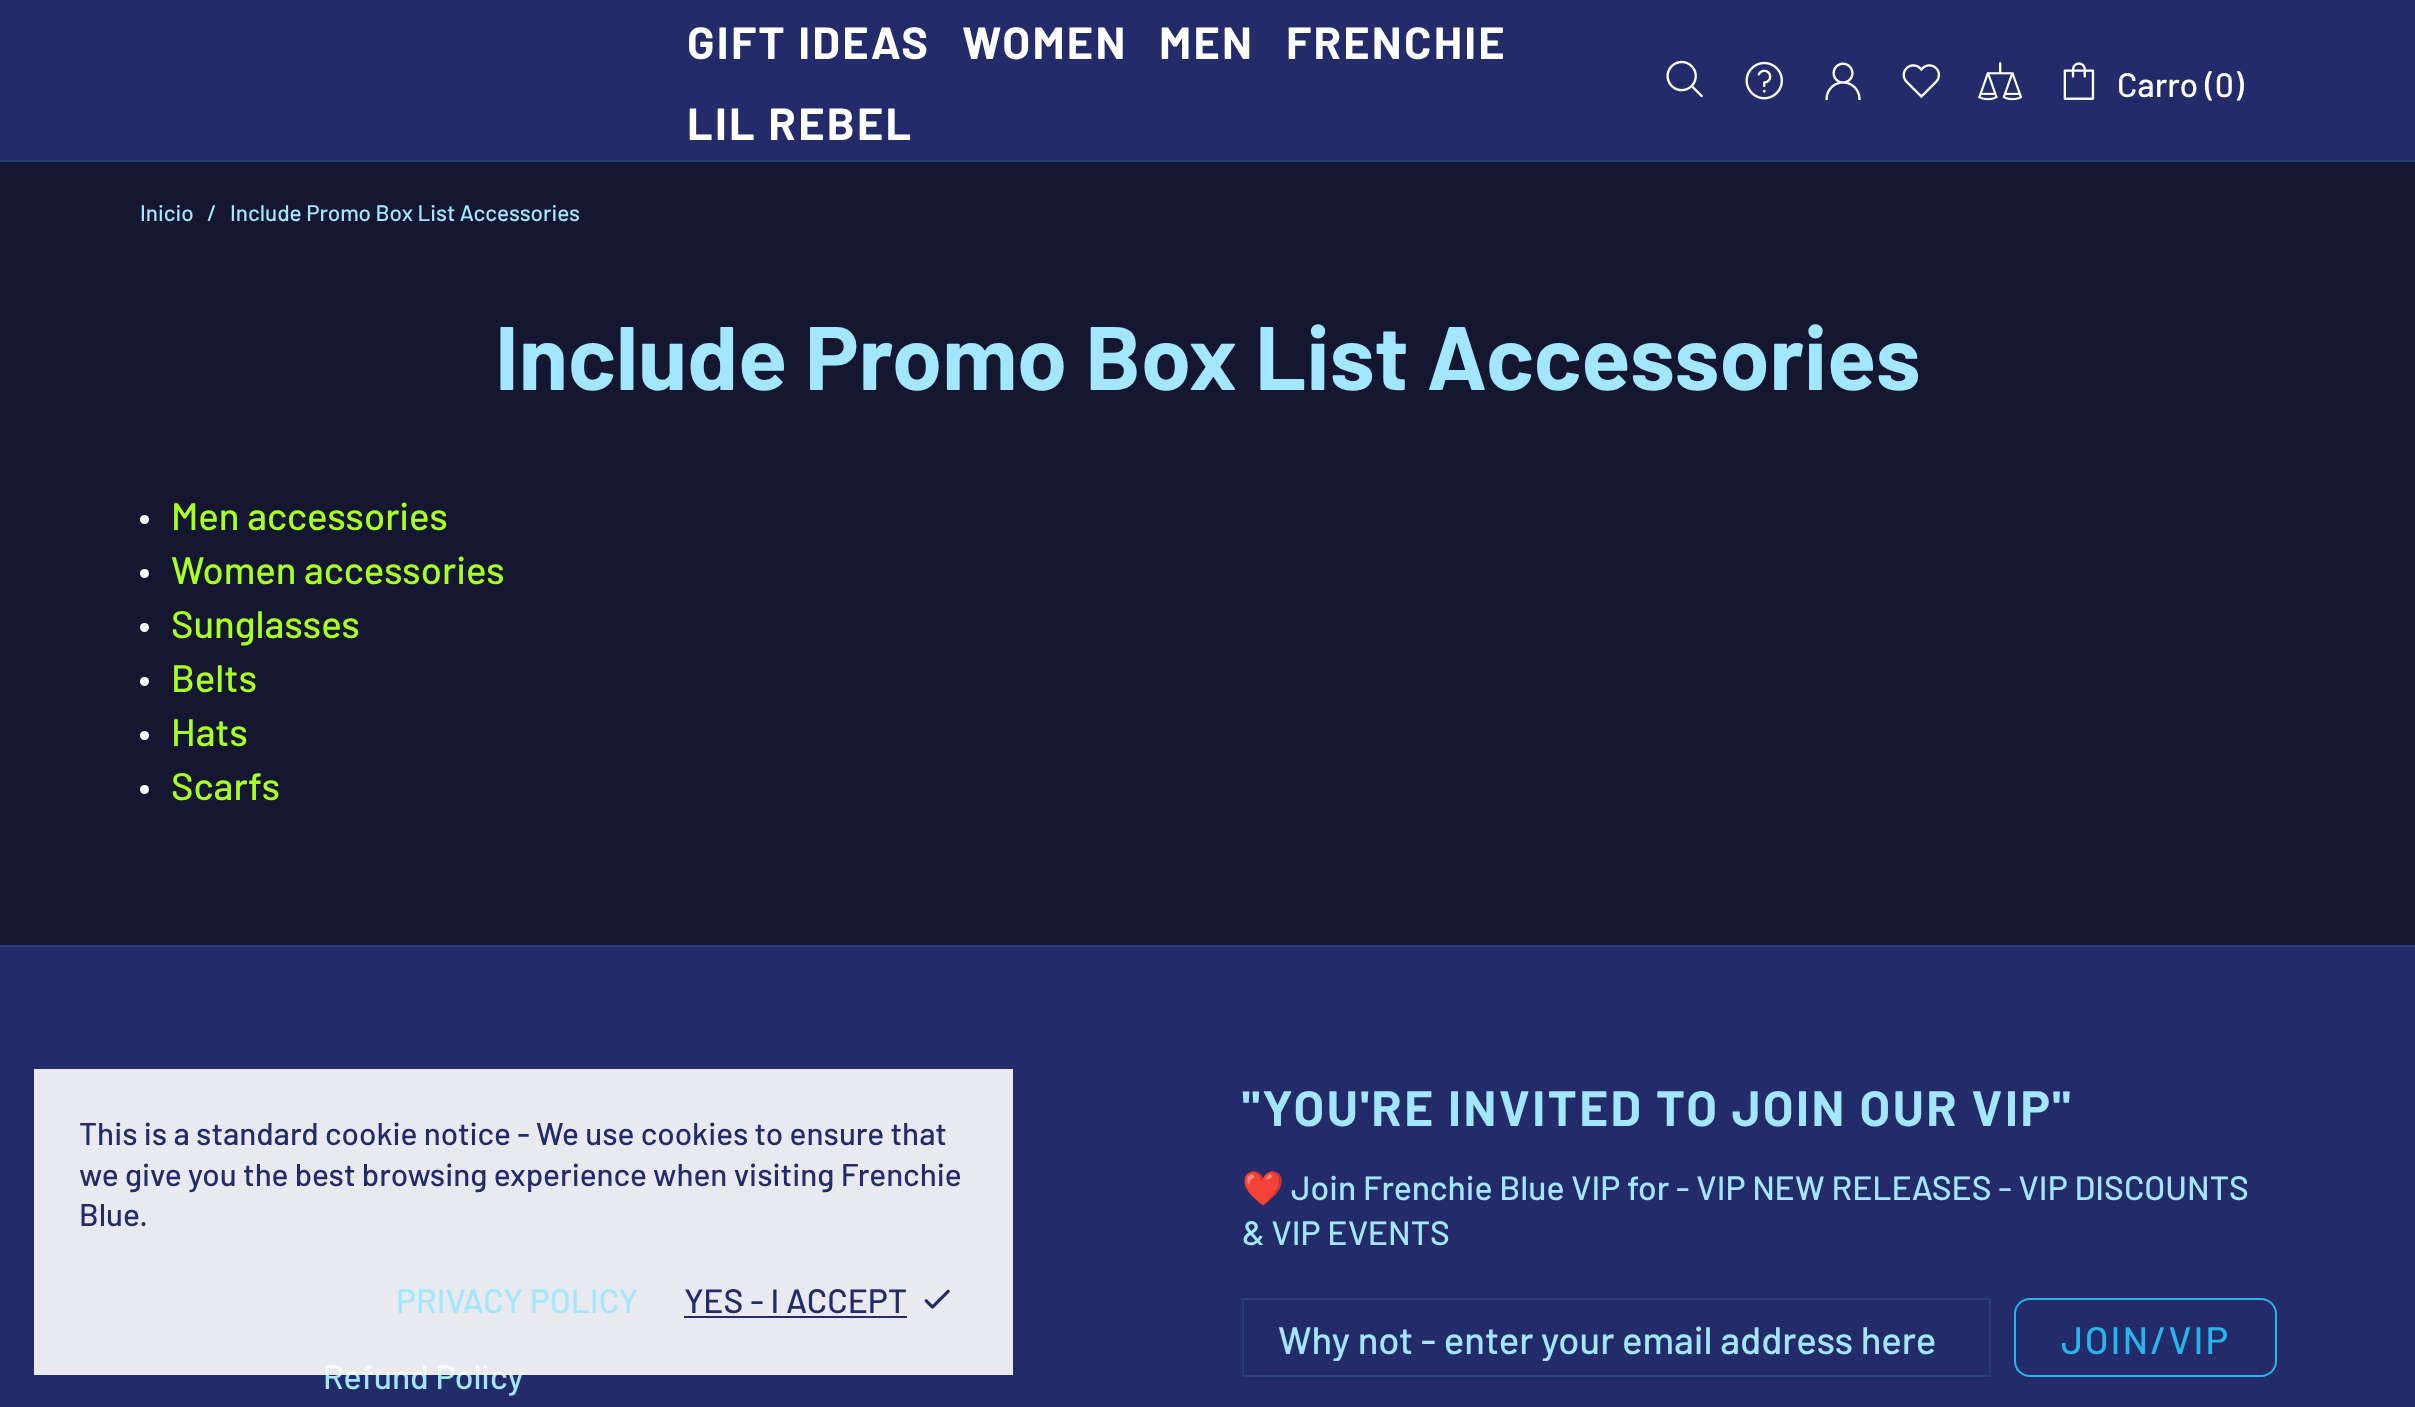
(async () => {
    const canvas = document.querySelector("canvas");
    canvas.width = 2415;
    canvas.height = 1407;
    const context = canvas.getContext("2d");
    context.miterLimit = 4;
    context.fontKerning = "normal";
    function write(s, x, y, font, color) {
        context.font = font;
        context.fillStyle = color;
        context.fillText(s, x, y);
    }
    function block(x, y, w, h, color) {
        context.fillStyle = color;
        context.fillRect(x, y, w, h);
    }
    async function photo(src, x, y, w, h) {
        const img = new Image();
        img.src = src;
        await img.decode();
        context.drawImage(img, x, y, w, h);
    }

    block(0, 0, 2415, 1407, "rgb(21, 23, 48)");
    block(0, 0, 2415, 160, "rgb(36, 43, 106)");
    block(0, 160, 2415, 2, "rgb(36, 64, 118)");
    context.letterSpacing = "2.25px";
    write("GIFT IDEAS", 687, 59, "bold 45px Barlow", "rgb(255, 255, 255)");
    write("WOMEN", 962, 59, "bold 45px Barlow", "rgb(255, 255, 255)");
    write("MEN", 1159, 59, "bold 45px Barlow", "rgb(255, 255, 255)");
    write("FRENCHIE", 1286, 59, "bold 45px Barlow", "rgb(255, 255, 255)");
    write("LIL REBEL", 687, 140, "bold 45px Barlow", "rgb(255, 255, 255)");
    await photo("media/1.png", 1666, 60, 37, 38);
    await photo("media/2.png", 1745, 61, 38, 39);
    await photo("media/3.png", 1825, 62, 36, 39);
    await photo("media/4.png", 1902, 64, 39, 35);
    await photo("media/5.png", 1978, 62, 45, 39);
    await photo("media/6.png", 2063, 62, 32, 38);
    context.letterSpacing = "0px";
    write("Carro (0)", 2117, 97, "500 33.75px Barlow", "rgb(255, 255, 255)");
    write("Inicio", 140, 221, "500 22.5px Barlow", "rgb(163, 230, 255)");
    write("/", 207, 221, "500 22.5px Barlow", "rgb(163, 230, 255)");
    write("Include Promo Box List Accessories", 230, 221, "500 22.5px Barlow", "rgb(163, 230, 255)");
    write("Include Promo Box List Accessories", 495, 390, "bold 90px Barlow", "rgb(163, 230, 255)");
    context.fillStyle = "rgb(255, 255, 255)";
    context.beginPath();
    context.arc(144.5, 519.5, 4.5, 0, Math.PI * 2);
    context.fill();
    write("Men accessories", 171, 530, "500 38.25px Barlow", "rgb(167, 255, 35)");
    context.fillStyle = "rgb(255, 255, 255)";
    context.beginPath();
    context.arc(144.5, 573.5, 4.5, 0, Math.PI * 2);
    context.fill();
    write("Women accessories", 171, 584, "500 38.25px Barlow", "rgb(167, 255, 35)");
    context.fillStyle = "rgb(255, 255, 255)";
    context.beginPath();
    context.arc(144.5, 627.5, 4.5, 0, Math.PI * 2);
    context.fill();
    write("Sunglasses", 171, 638, "500 38.25px Barlow", "rgb(167, 255, 35)");
    context.fillStyle = "rgb(255, 255, 255)";
    context.beginPath();
    context.arc(144.5, 681.5, 4.5, 0, Math.PI * 2);
    context.fill();
    write("Belts", 171, 692, "500 38.25px Barlow", "rgb(167, 255, 35)");
    context.fillStyle = "rgb(255, 255, 255)";
    context.beginPath();
    context.arc(144.5, 735.5, 4.5, 0, Math.PI * 2);
    context.fill();
    write("Hats", 171, 746, "500 38.25px Barlow", "rgb(167, 255, 35)");
    context.fillStyle = "rgb(255, 255, 255)";
    context.beginPath();
    context.arc(144.5, 789.5, 4.5, 0, Math.PI * 2);
    context.fill();
    write("Scarfs", 171, 800, "500 38.25px Barlow", "rgb(167, 255, 35)");
    block(0, 947, 2415, 460, "rgb(36, 43, 106)");
    block(0, 945, 2415, 2, "rgb(36, 64, 118)");
    context.letterSpacing = "2.5px";
    write("\"YOU'RE INVITED TO JOIN OUR VIP\"", 1242, 1126, "bold 49.5px Barlow", "rgb(163, 230, 255)");
    context.letterSpacing = "0px";
    write("❤️", 1242, 1200, "33.75px Noto Color Emoji", "rgb(163, 230, 255)");
    write("Join Frenchie Blue VIP for - VIP NEW RELEASES - VIP DISCOUNTS", 1291, 1200, "500 33.75px Barlow", "rgb(163, 230, 255)");
    write("& VIP EVENTS", 1242, 1245, "500 33.75px Barlow", "rgb(163, 230, 255)");
    context.strokeStyle = "rgb(36, 64, 118)";
    context.lineWidth = 2;
    context.strokeRect(1243, 1299, 747, 77);
    context.save();
    context.beginPath();
    context.rect(1278, 1316, 677, 45);
    context.clip();
    write("Why not - enter your email address here", 1278, 1354, "500 38.25px Barlow", "rgb(163, 230, 255)");
    context.restore();
    context.beginPath();
    context.roundRect(2015, 1299, 261, 77, 15);
    context.strokeStyle = "rgb(40, 182, 234)";
    context.stroke();
    context.letterSpacing = "2px";
    write("JOIN/VIP", 2061, 1354, "500 38.25px Barlow", "rgb(40, 182, 234)");
    context.letterSpacing = "0px";
    write("Refund Policy", 323, 1389, "500 33.75px Barlow", "rgb(163, 230, 255)");
    block(34, 1069, 979, 306, "rgba(255, 255, 255, 0.9)");
    write("This is a standard cookie notice - We use cookies to ensure that", 79, 1145, "500 31.5px Barlow", "rgb(36, 43, 106)");
    write("we give you the best browsing experience when visiting Frenchie", 79, 1186, "500 31.5px Barlow", "rgb(36, 43, 106)");
    write("Blue.", 79, 1226, "500 31.5px Barlow", "rgb(36, 43, 106)");
    write("PRIVACY POLICY", 396, 1313, "500 33.75px Barlow", "rgb(163, 230, 255)");
    write("YES - I ACCEPT", 684, 1313, "500 33.75px Barlow", "rgb(36, 43, 106)");
    block(684, 1316, 223, 2, "rgb(36, 43, 106)");
    await photo("media/7.png", 924, 1289, 26, 20);
})();
